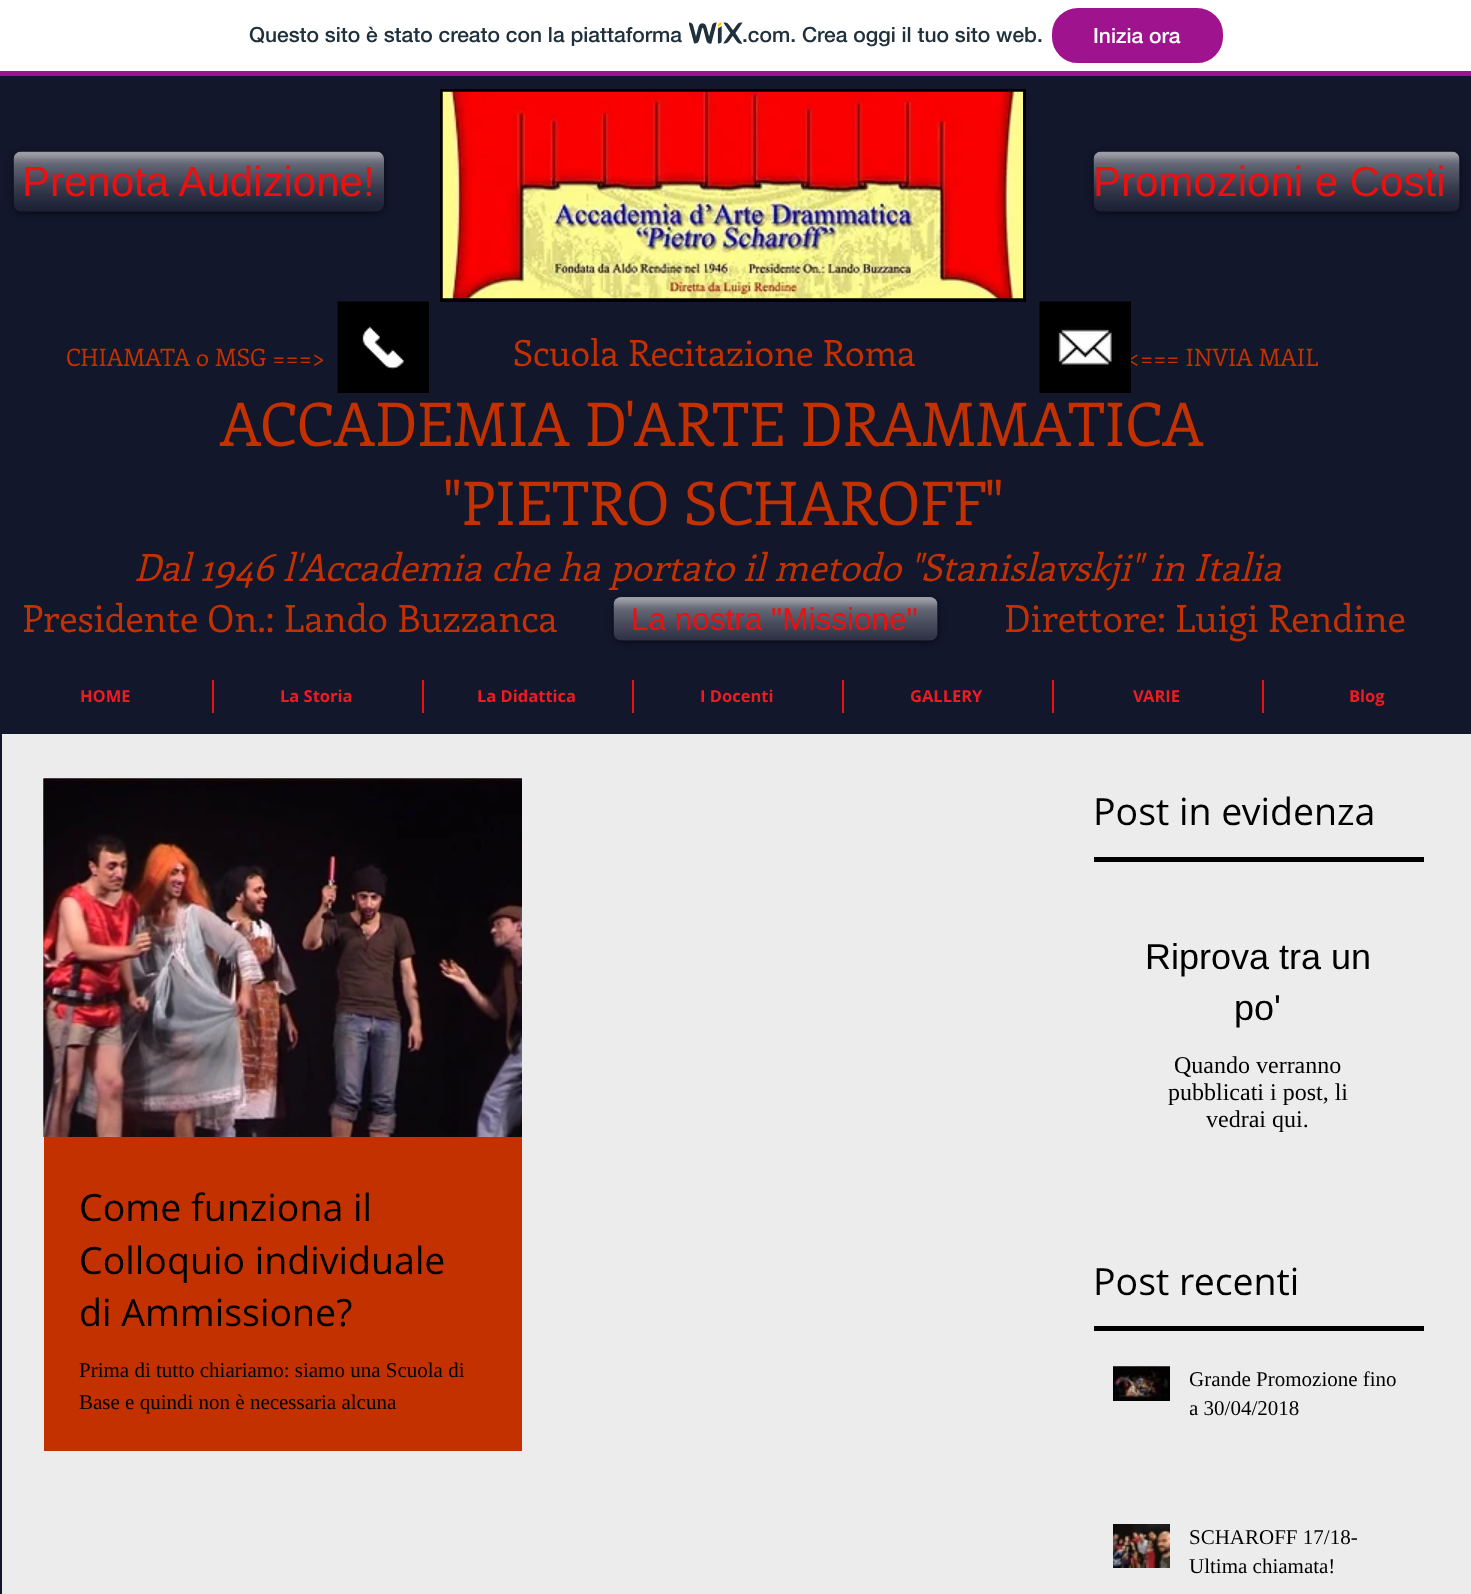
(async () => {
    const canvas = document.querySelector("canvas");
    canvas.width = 1471;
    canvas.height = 1594;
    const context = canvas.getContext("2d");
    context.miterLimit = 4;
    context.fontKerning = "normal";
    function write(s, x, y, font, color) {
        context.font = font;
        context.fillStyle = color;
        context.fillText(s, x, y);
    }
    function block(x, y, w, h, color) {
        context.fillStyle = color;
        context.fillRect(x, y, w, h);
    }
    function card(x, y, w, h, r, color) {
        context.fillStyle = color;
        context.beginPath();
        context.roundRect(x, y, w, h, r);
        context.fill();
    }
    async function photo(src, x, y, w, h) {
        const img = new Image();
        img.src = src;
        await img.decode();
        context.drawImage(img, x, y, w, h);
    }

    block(0, 0, 1471, 1594, "rgb(255, 255, 255)");
    block(0, 71, 1471, 5, "rgb(160, 19, 142)");
    write("Questo sito è stato creato con la piattaforma", 249, 42, "500 21px 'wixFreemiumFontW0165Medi'", "rgb(32, 48, 60)");
    await photo("media/1.png", 689, 22, 54, 22);
    write(".com. Crea oggi il tuo sito web.", 742, 42, "500 21px 'wixFreemiumFontW0165Medi'", "rgb(32, 48, 60)");
    context.fillStyle = "rgb(160, 19, 142)";
    context.beginPath();
    context.roundRect(1053, 9, 169, 53, 25);
    context.fill();
    context.strokeStyle = "rgb(160, 19, 142)";
    context.lineWidth = 2;
    context.stroke();
    write("Inizia ora", 1093, 43, "500 21px 'wixFreemiumFontW0165Medi'", "rgb(255, 255, 255)");
    block(0, 76, 1471, 1518, "rgb(18, 23, 44)");
    context.fillStyle = "rgba(0, 0, 0, 0.6)";
    context.filter = "blur(3px)";
    context.beginPath();
    context.roundRect(14, 153, 370, 60, 8);
    context.fill();
    context.filter = "none";
    card(14, 152, 370, 60, 8, "rgb(18, 23, 44)");
    await photo("media/2.png", 13, 151, 371, 60);
    write("Prenota Audizione!", 22, 196, "42px Liberation Sans", "rgb(236, 17, 17)");
    block(440, 89, 586, 213, "rgb(0, 0, 0)");
    await photo("media/3.png", 442, 91, 581, 208);
    context.fillStyle = "rgba(0, 0, 0, 0.6)";
    context.filter = "blur(3px)";
    context.beginPath();
    context.roundRect(1094, 153, 366, 60, 8);
    context.fill();
    context.filter = "none";
    card(1094, 152, 366, 60, 8, "rgb(18, 23, 44)");
    await photo("media/4.png", 1093, 151, 367, 60);
    write("Promozioni e Costi", 1093, 196, "42px Liberation Sans", "rgb(236, 17, 17)");
    await photo("media/5.png", 337, 301, 92, 92);
    write("<=== INVIA MAIL", 1127, 366, "24px Enriqueta", "rgb(196, 49, 0)");
    await photo("media/6.png", 1039, 301, 92, 92);
    write("CHIAMATA o MSG ===>", 66, 366, "24px Enriqueta", "rgb(196, 49, 0)");
    write("Scuola Recitazione Roma", 513, 366, "36px Enriqueta", "rgb(196, 49, 0)");
    write("ACCADEMIA D'ARTE DRAMMATICA", 220, 446, "60px Enriqueta", "rgb(196, 49, 0)");
    write("\"PIETRO SCHAROFF\"", 444, 525, "60px Enriqueta", "rgb(196, 49, 0)");
    write("Dal 1946 l'Accademia che ha portato il metodo \"Stanislavskji\" in Italia", 134, 581, "italic 37.5px Enriqueta", "rgb(196, 49, 0)");
    write("Presidente On.: Lando Buzzanca                                                Direttore: Luigi Rendine", 22, 632, "37.5px Enriqueta", "rgb(196, 49, 0)");
    context.fillStyle = "rgba(0, 0, 0, 0.6)";
    context.filter = "blur(3px)";
    context.beginPath();
    context.roundRect(614, 599, 324, 43, 8);
    context.fill();
    context.filter = "none";
    card(614, 597, 324, 44, 8, "rgb(18, 23, 44)");
    await photo("media/7.png", 613, 597, 325, 44);
    write("La nostra \"Missione\"", 631, 630, "31.5px Liberation Sans", "rgb(236, 17, 17)");
    write("HOME", 80, 702, "bold 16.5px Open Sans", "rgb(237, 28, 36)");
    block(212, 680, 2, 33, "rgb(236, 17, 17)");
    write("La Storia", 280, 702, "bold 16.5px Open Sans", "rgb(237, 28, 36)");
    block(422, 680, 2, 33, "rgb(236, 17, 17)");
    write("La Didattica", 477, 702, "bold 16.5px Open Sans", "rgb(237, 28, 36)");
    block(632, 680, 2, 33, "rgb(236, 17, 17)");
    write("I Docenti", 700, 702, "bold 16.5px Open Sans", "rgb(237, 28, 36)");
    block(842, 680, 2, 33, "rgb(236, 17, 17)");
    write("GALLERY", 910, 702, "bold 16.5px Open Sans", "rgb(237, 28, 36)");
    block(1052, 680, 2, 33, "rgb(236, 17, 17)");
    write("VARIE", 1133, 702, "bold 16.5px Open Sans", "rgb(237, 28, 36)");
    block(1262, 680, 2, 33, "rgb(236, 17, 17)");
    write("Blog", 1349, 702, "bold 16.5px Open Sans", "rgb(237, 28, 36)");
    block(2, 734, 1469, 860, "rgb(236, 236, 236)");
    write("Post in evidenza", 1093, 825, "37.5px Open Sans", "rgb(0, 0, 0)");
    block(1094, 857, 330, 5, "rgb(0, 0, 0)");
    write("Riprova tra un", 1145, 969, "36px Liberation Sans", "rgb(0, 0, 0)");
    write("po'", 1234, 1020, "36px Liberation Sans", "rgb(0, 0, 0)");
    write("Quando verranno", 1174, 1073, "24px Liberation Serif", "rgb(0, 0, 0)");
    write("pubblicati i post, li", 1168, 1100, "24px Liberation Serif", "rgb(0, 0, 0)");
    write("vedrai qui.", 1206, 1127, "24px Liberation Serif", "rgb(0, 0, 0)");
    await photo("media/8.png", 43, 778, 479, 359);
    await photo("media/9.png", 43, 778, 479, 359);
    block(44, 1137, 478, 314, "rgb(196, 49, 0)");
    write("Come funziona il", 79, 1221, "37.5px Open Sans", "rgb(0, 0, 0)");
    write("Colloquio individuale", 79, 1274, "37.5px Open Sans", "rgb(0, 0, 0)");
    write("di Ammissione?", 79, 1326, "37.5px Open Sans", "rgb(0, 0, 0)");
    write("Prima di tutto chiariamo: siamo una Scuola di", 79, 1377, "21px Liberation Serif", "rgb(0, 0, 0)");
    write("Base e quindi non è necessaria alcuna", 79, 1409, "21px Liberation Serif", "rgb(0, 0, 0)");
    write("Post recenti", 1093, 1295, "37.5px Open Sans", "rgb(0, 0, 0)");
    block(1094, 1326, 330, 5, "rgb(0, 0, 0)");
    await photo("media/10.png", 1113, 1366, 57, 1);
    await photo("media/11.png", 1113, 1366, 57, 35);
    context.save();
    context.beginPath();
    context.rect(1190, 1365, 216, 59);
    context.clip();
    write("Grande Promozione fino", 1189, 1386, "21px Liberation Serif", "rgb(0, 0, 0)");
    write("a 30/04/2018", 1189, 1415, "21px Liberation Serif", "rgb(0, 0, 0)");
    context.restore();
    await photo("media/12.png", 1113, 1524, 57, 44);
    write("SCHAROFF 17/18-", 1189, 1544, "21px Liberation Serif", "rgb(0, 0, 0)");
    write("Ultima chiamata!", 1189, 1573, "21px Liberation Serif", "rgb(0, 0, 0)");
})();
